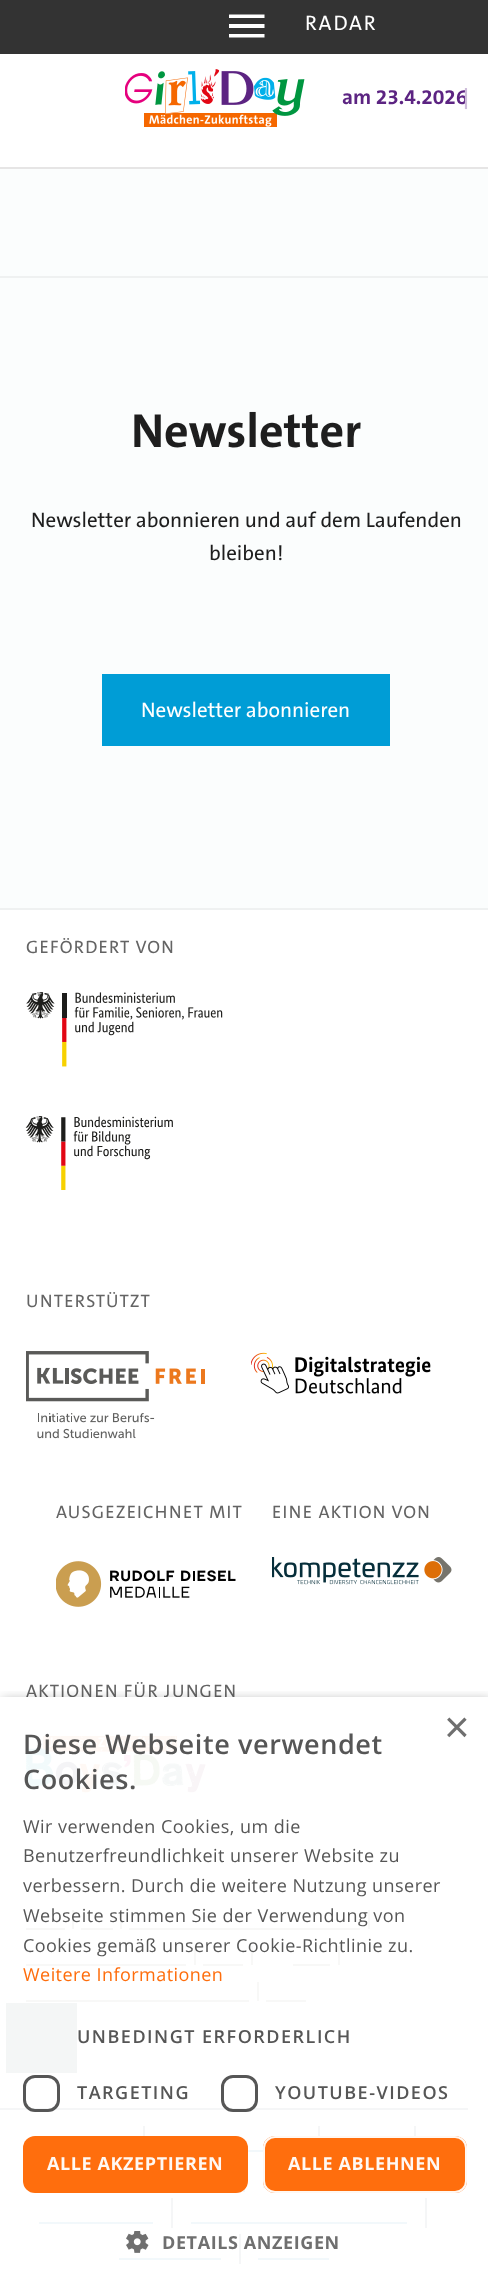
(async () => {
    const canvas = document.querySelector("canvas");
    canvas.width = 488;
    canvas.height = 2295;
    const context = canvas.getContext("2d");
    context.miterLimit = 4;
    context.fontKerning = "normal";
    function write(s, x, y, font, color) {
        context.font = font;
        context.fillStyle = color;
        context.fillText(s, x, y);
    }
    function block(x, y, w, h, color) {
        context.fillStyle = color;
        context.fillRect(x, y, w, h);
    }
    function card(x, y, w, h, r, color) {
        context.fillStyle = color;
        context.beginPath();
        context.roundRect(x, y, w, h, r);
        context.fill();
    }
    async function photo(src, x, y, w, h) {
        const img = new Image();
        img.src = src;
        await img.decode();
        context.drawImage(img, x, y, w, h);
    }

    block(0, 0, 488, 2295, "rgb(251, 253, 253)");
    block(0, 54, 488, 113, "rgb(255, 255, 255)");
    block(0, 167, 488, 2, "rgb(230, 229, 229)");
    block(0, 0, 488, 54, "rgb(51, 51, 51)");
    context.fillStyle = "rgb(255, 255, 255)";
    context.beginPath();
    context.moveTo(229, 37.5);
    context.lineTo(264.5, 37.5);
    context.lineTo(264.5, 34);
    context.lineTo(229, 34);
    context.closePath();
    context.moveTo(229, 28);
    context.lineTo(264.5, 28);
    context.lineTo(264.5, 24);
    context.lineTo(229, 24);
    context.closePath();
    context.moveTo(229, 14.5);
    context.lineTo(229, 18);
    context.lineTo(264.5, 18);
    context.lineTo(264.5, 14.5);
    context.closePath();
    context.fill("evenodd");
    context.letterSpacing = "2px";
    write("RADAR", 305, 30, "500 21px 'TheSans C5'", "rgb(255, 255, 255)");
    await photo("media/1.png", 125, 69, 180, 58);
    context.letterSpacing = "0px";
    write("am 23.4.2026", 342, 104, "bold 21px 'TheSans C5'", "rgb(92, 36, 130)");
    write("|", 463, 104, "bold 21px 'TheSans C5'", "rgb(205, 188, 217)");
    block(0, 910, 488, 925, "rgb(255, 255, 255)");
    block(0, 276, 488, 2, "rgb(239, 241, 241)");
    write("Newsletter", 131, 447, "bold 48px 'TheSans C5'", "rgb(30, 30, 30)");
    write("Newsletter abonnieren und auf dem Laufenden", 31, 527, "500 21px 'TheSans C5'", "rgb(30, 30, 30)");
    write("bleiben!", 209, 560, "500 21px 'TheSans C5'", "rgb(30, 30, 30)");
    block(102, 674, 288, 72, "rgb(0, 157, 214)");
    write("Newsletter abonnieren", 141, 717, "500 21px 'TheSans C5'", "rgb(255, 255, 255)");
    block(0, 908, 488, 2, "rgb(239, 241, 241)");
    context.letterSpacing = "1.25px";
    write("GEFÖRDERT VON", 26, 953, "500 18px 'TheSans C5'", "rgb(100, 100, 100)");
    await photo("media/2.png", 26, 992, 197, 75);
    await photo("media/3.png", 25, 1116, 148, 74);
    write("UNTERSTÜTZT", 26, 1307, "500 18px 'TheSans C5'", "rgb(100, 100, 100)");
    await photo("media/4.png", 26, 1351, 179, 88);
    await photo("media/5.png", 251, 1352, 180, 42);
    write("AUSGEZEICHNET MIT", 56, 1518, "500 18px 'TheSans C5'", "rgb(100, 100, 100)");
    await photo("media/6.png", 56, 1561, 180, 46);
    write("EINE AKTION VON", 272, 1518, "500 18px 'TheSans C5'", "rgb(100, 100, 100)");
    await photo("media/7.png", 272, 1557, 180, 28);
    write("AKTIONEN FÜR JUNGEN", 26, 1697, "500 18px 'TheSans C5'", "rgb(100, 100, 100)");
    await photo("media/8.png", 26, 1736, 180, 57);
    block(0, 1835, 488, 460, "rgb(244, 246, 246)");
    block(72, 1910, 2, 19, "rgb(118, 116, 108)");
    block(26, 1928, 39, 2, "rgb(118, 116, 108)");
    block(120, 1910, 2, 19, "rgb(118, 116, 108)");
    block(81, 1928, 32, 2, "rgb(118, 116, 108)");
    block(368, 1910, 2, 19, "rgb(118, 116, 108)");
    block(129, 1928, 231, 2, "rgb(118, 116, 108)");
    block(194, 1946, 2, 19, "rgb(118, 116, 108)");
    block(26, 1964, 160, 2, "rgb(118, 116, 108)");
    block(251, 1946, 2, 19, "rgb(118, 116, 108)");
    block(203, 1964, 40, 2, "rgb(118, 116, 108)");
    block(338, 1946, 2, 19, "rgb(118, 116, 108)");
    block(293, 1964, 37, 2, "rgb(118, 116, 108)");
    block(257, 1982, 2, 19, "rgb(118, 116, 108)");
    block(26, 2000, 223, 2, "rgb(118, 116, 108)");
    block(266, 2000, 40, 2, "rgb(118, 116, 108)");
    block(0, 2108, 468, 2, "rgb(58, 83, 93)");
    block(143, 2126, 2, 30, "rgb(58, 83, 93)");
    block(50, 2150, 75, 2, "rgb(0, 120, 174)");
    block(318, 2126, 2, 30, "rgb(58, 83, 93)");
    block(162, 2150, 138, 2, "rgb(0, 120, 174)");
    block(414, 2126, 2, 30, "rgb(58, 83, 93)");
    block(338, 2150, 58, 2, "rgb(0, 120, 174)");
    block(243, 2162, 2, 30, "rgb(58, 83, 93)");
    block(45, 2186, 180, 2, "rgb(0, 120, 174)");
    block(419, 2162, 2, 30, "rgb(58, 83, 93)");
    block(263, 2186, 138, 2, "rgb(0, 120, 174)");
    block(171, 2198, 2, 30, "rgb(58, 83, 93)");
    block(39, 2222, 114, 2, "rgb(0, 120, 174)");
    block(425, 2198, 2, 30, "rgb(58, 83, 93)");
    block(191, 2222, 216, 2, "rgb(0, 120, 174)");
    block(239, 2234, 2, 30, "rgb(58, 83, 93)");
    block(119, 2258, 102, 2, "rgb(0, 120, 174)");
    block(258, 2258, 71, 2, "rgb(0, 120, 174)");
    context.save();
    context.beginPath();
    context.rect(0, 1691, 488, 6);
    context.clip();
    context.fillStyle = "rgba(0, 0, 0, 0.33)";
    context.filter = "blur(6px)";
    context.beginPath();
    context.rect(2, 1700, 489, 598);
    context.fill();
    context.filter = "none";
    context.restore();
    block(0, 1697, 488, 598, "rgba(255, 255, 255, 0.95)");
    context.letterSpacing = "0px";
    write("×", 444, 1742, "44px Liberation Sans", "rgb(111, 111, 111)");
    context.letterSpacing = "0.6px";
    write("Diese Webseite verwendet", 23, 1754, "600 27px Open Sans", "rgb(86, 86, 86)");
    write("Cookies.", 23, 1789, "600 27px Open Sans", "rgb(86, 86, 86)");
    context.letterSpacing = "0.45px";
    write("Wir verwenden Cookies, um die", 23, 1833, "18px Open Sans", "rgb(86, 86, 86)");
    write("Benutzerfreundlichkeit unserer Website zu", 23, 1862, "18px Open Sans", "rgb(86, 86, 86)");
    write("verbessern. Durch die weitere Nutzung unserer", 23, 1892, "18px Open Sans", "rgb(86, 86, 86)");
    write("Webseite stimmen Sie der Verwendung von", 23, 1922, "18px Open Sans", "rgb(86, 86, 86)");
    write("Cookies gemäß unserer Cookie-Richtlinie zu.", 23, 1952, "18px Open Sans", "rgb(86, 86, 86)");
    write("Weitere Informationen", 23, 1981, "18px Open Sans", "rgb(254, 109, 12)");
    block(6, 2003, 71, 70, "rgb(244, 246, 246)");
    context.letterSpacing = "1.5px";
    write("UNBEDINGT ERFORDERLICH", 77, 2043, "600 18px Open Sans", "rgb(86, 86, 86)");
    context.beginPath();
    context.roundRect(24.5, 2076.5, 34, 34, 10.5);
    context.strokeStyle = "rgba(77, 77, 77, 0.95)";
    context.lineWidth = 3;
    context.stroke();
    write("TARGETING", 77, 2099, "600 18px Open Sans", "rgb(86, 86, 86)");
    context.beginPath();
    context.roundRect(222.5, 2076.5, 34, 34, 10.5);
    context.stroke();
    write("YOUTUBE-VIDEOS", 275, 2099, "600 18px Open Sans", "rgb(86, 86, 86)");
    card(23, 2136, 225, 57, 12, "rgba(255, 102, 0, 0.95)");
    context.letterSpacing = "0.6px";
    write("ALLE AKZEPTIEREN", 47, 2170, "bold 18px Open Sans", "rgb(255, 248, 243)");
    card(263, 2136, 204, 57, 12, "rgba(255, 102, 0, 0.95)");
    context.beginPath();
    context.roundRect(264, 2137, 202, 55, 11);
    context.strokeStyle = "rgba(255, 255, 255, 0.95)";
    context.lineWidth = 2;
    context.stroke();
    write("ALLE ABLEHNEN", 288, 2170, "bold 18px Open Sans", "rgb(255, 248, 243)");
    await photo("media/9.png", 126, 2231, 23, 22);
    write("DETAILS ANZEIGEN", 162, 2249, "bold 18px Open Sans", "rgb(111, 111, 111)");
})();
